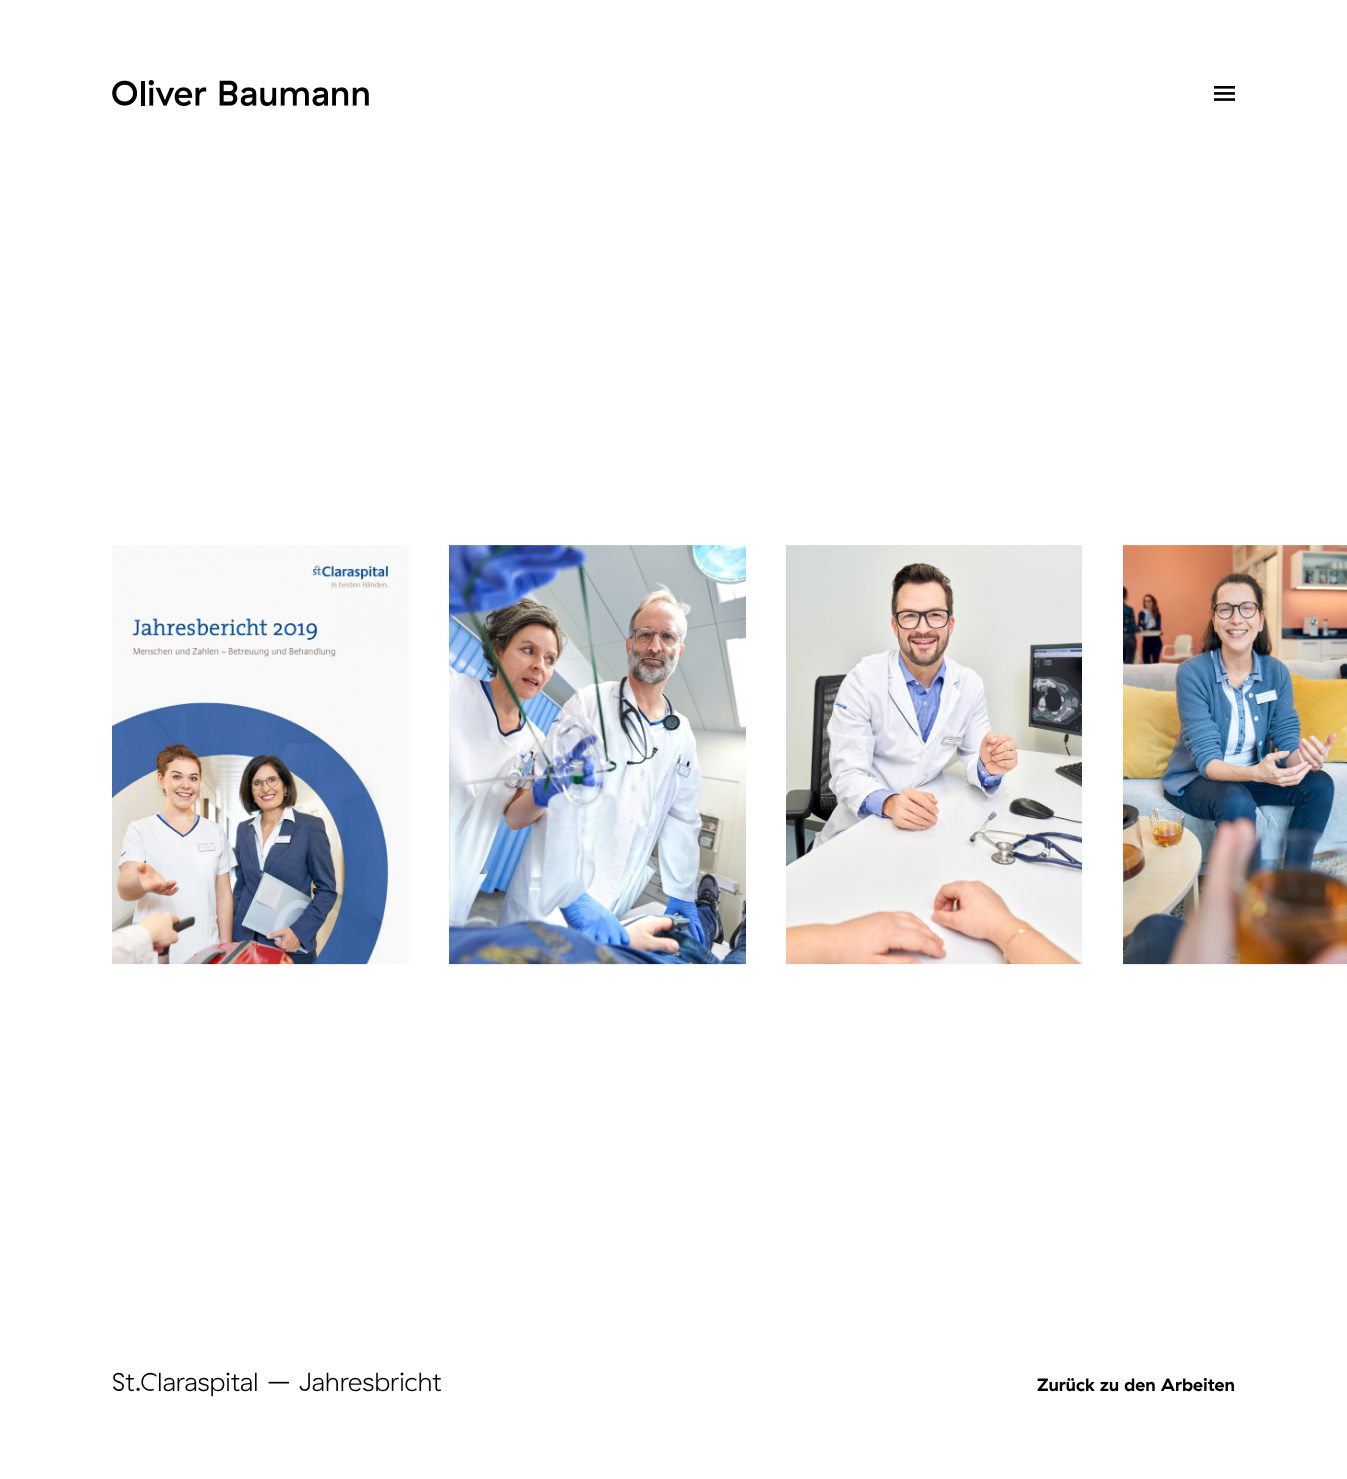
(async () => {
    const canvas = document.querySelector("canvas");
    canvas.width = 1347;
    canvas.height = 1479;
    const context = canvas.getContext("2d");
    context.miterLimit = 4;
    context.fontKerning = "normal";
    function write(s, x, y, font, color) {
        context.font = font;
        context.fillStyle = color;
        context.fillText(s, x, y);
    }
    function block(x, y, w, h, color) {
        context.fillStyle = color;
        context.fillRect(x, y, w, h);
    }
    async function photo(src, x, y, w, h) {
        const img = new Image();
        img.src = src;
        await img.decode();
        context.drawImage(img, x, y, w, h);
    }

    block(0, 0, 1347, 1479, "rgb(255, 255, 255)");
    await photo("media/1.png", 112, 80, 257, 26);
    await photo("media/2.png", 1214, 86, 21, 15);
    await photo("media/3.png", 112, 545, 297, 420);
    await photo("media/4.png", 449, 545, 297, 420);
    await photo("media/5.png", 786, 545, 296, 420);
    await photo("media/6.png", 1123, 545, 224, 420);
    write("St.Claraspital – Jahresbricht", 112, 1391, "300 26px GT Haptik", "rgb(0, 0, 0)");
    write("Zurück zu den Arbeiten", 1037, 1391, "bold 18px GT Haptik", "rgb(0, 0, 0)");
})();
